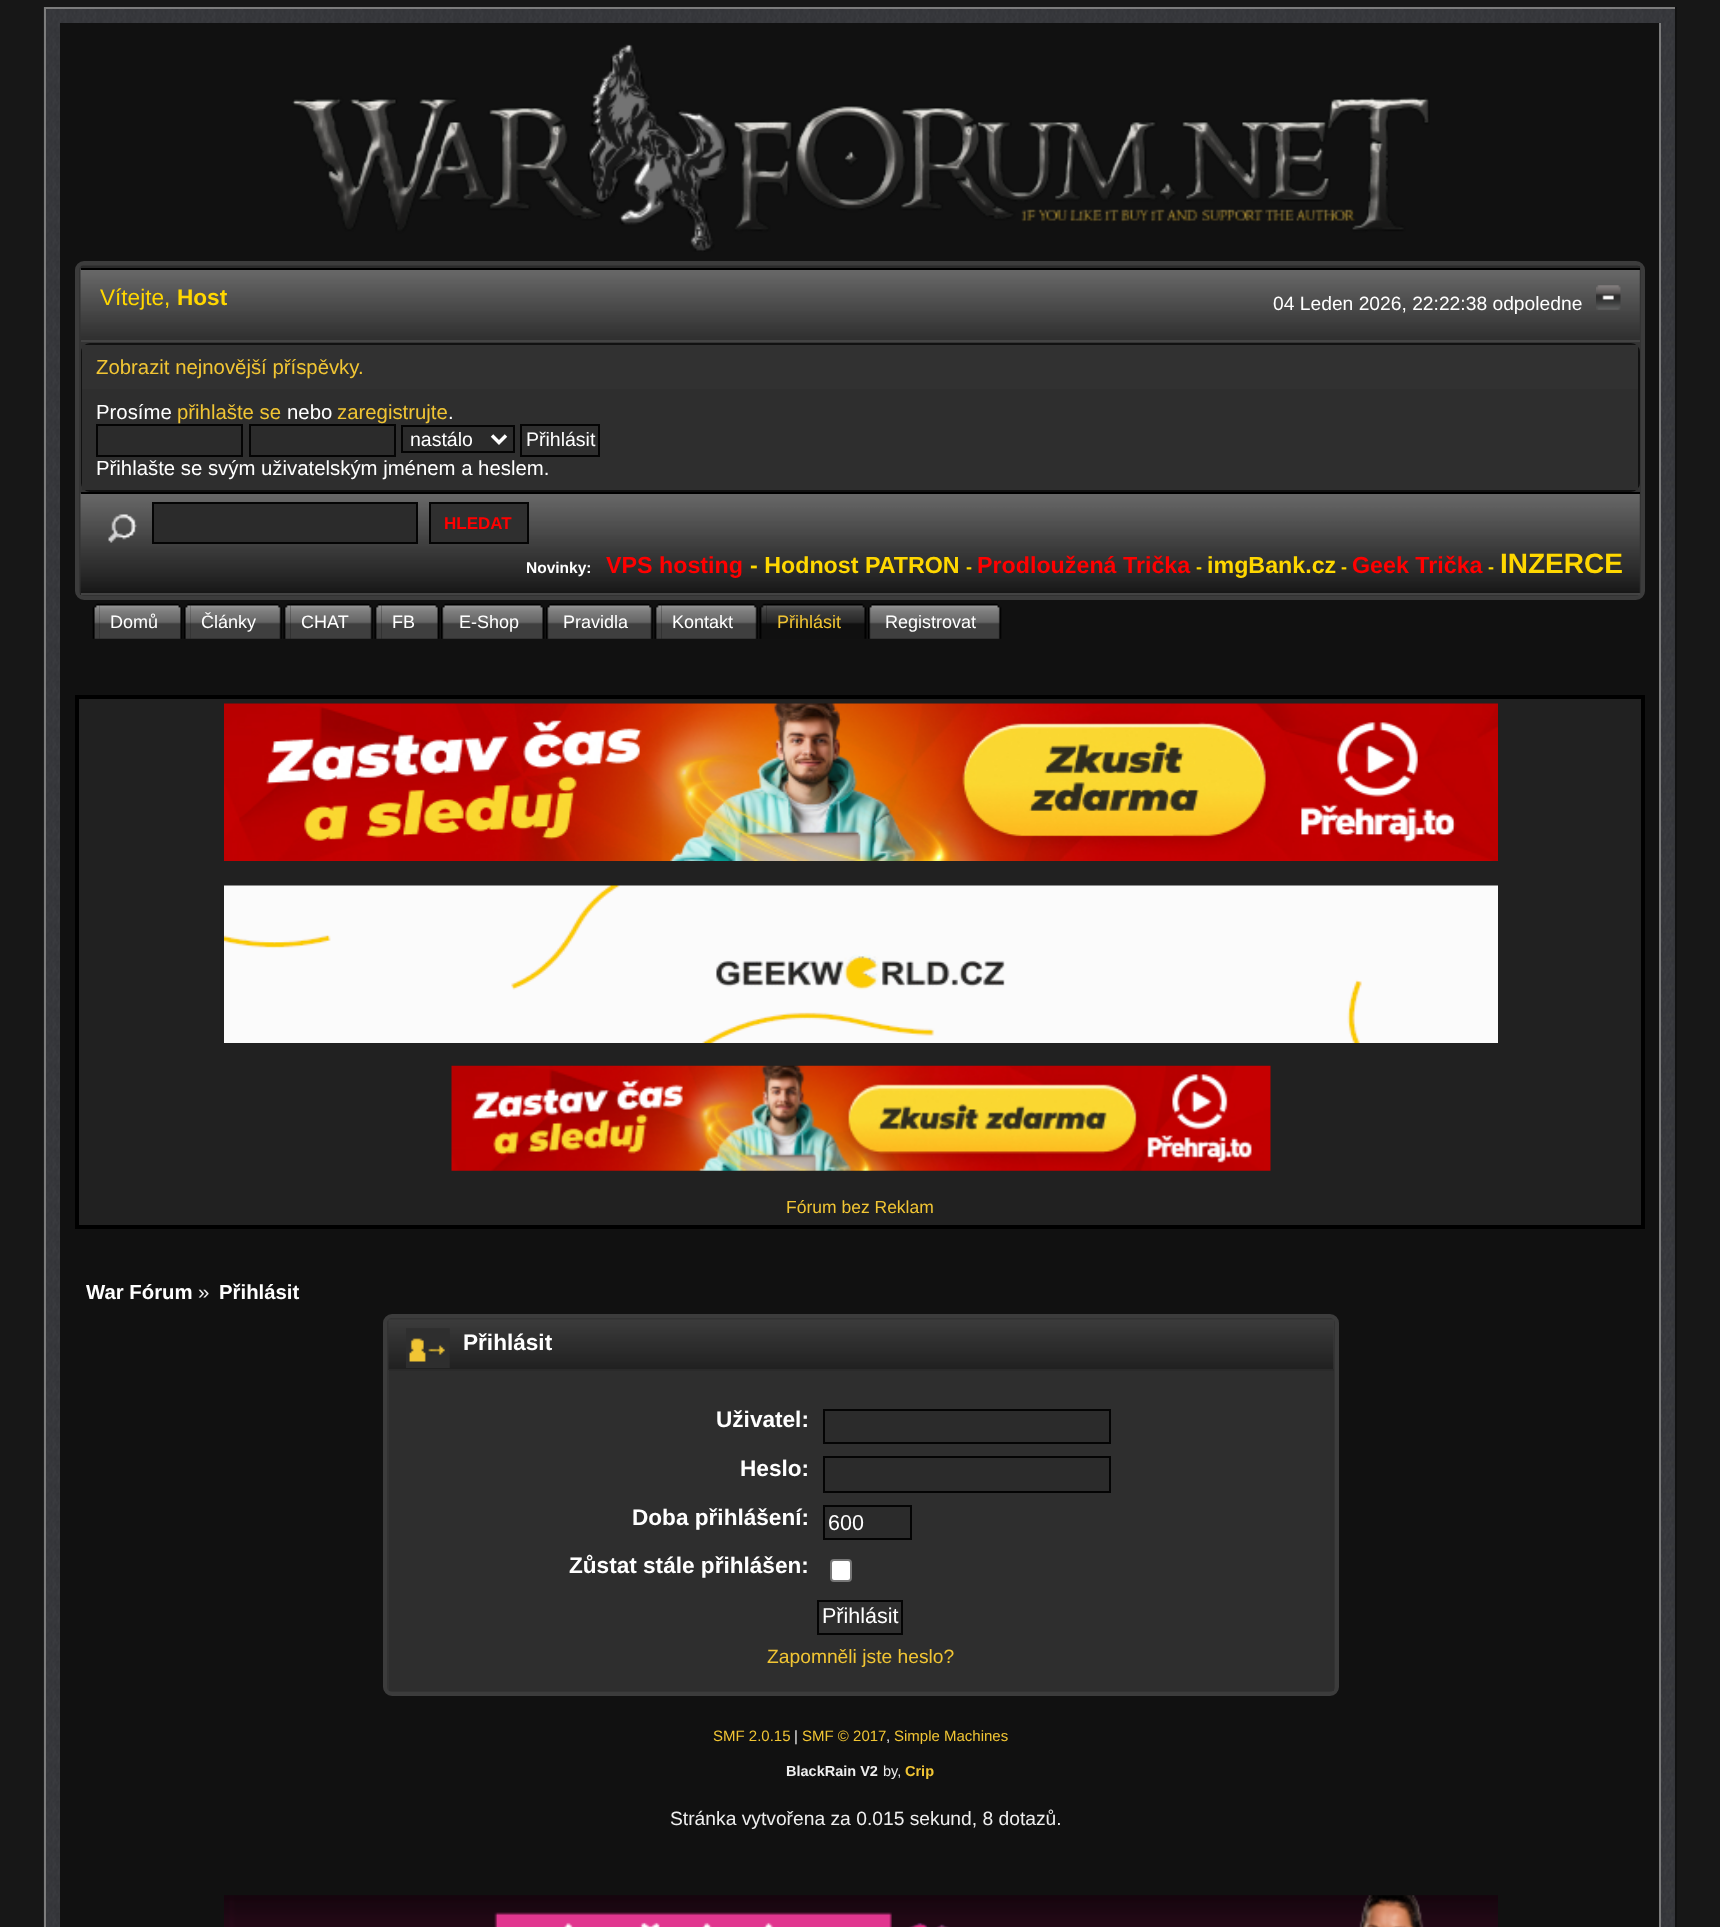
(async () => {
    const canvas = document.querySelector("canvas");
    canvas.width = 1720;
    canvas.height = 1927;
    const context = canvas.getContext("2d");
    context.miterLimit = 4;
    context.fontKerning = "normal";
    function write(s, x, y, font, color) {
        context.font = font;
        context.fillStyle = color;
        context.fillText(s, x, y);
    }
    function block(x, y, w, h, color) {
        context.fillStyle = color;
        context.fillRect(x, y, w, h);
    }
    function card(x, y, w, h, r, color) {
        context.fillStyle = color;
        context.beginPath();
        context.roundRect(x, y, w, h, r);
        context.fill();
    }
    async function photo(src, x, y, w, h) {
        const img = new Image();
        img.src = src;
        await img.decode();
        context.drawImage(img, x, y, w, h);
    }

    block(0, 0, 1720, 1927, "rgb(23, 23, 23)");
    await photo("media/1.png", 43, 7, 1632, 1920);
    block(44, 7, 1633, 2, "rgb(124, 124, 124)");
    block(1675, 7, 2, 1920, "rgb(17, 17, 17)");
    block(44, 7, 2, 1920, "rgb(124, 124, 124)");
    block(60, 23, 1599, 1904, "rgb(17, 17, 17)");
    block(1659, 23, 2, 1904, "rgb(124, 124, 124)");
    await photo("media/2.png", 292, 44, 1138, 208);
    context.fillStyle = "rgb(51, 51, 51)";
    context.beginPath();
    context.roundRect(77, 263, 1566, 335, 7);
    context.fill();
    context.strokeStyle = "rgb(60, 60, 60)";
    context.lineWidth = 4;
    context.stroke();
    block(81, 266, 1559, 2, "rgb(42, 42, 42)");
    await photo("media/3.png", 80, 269, 1560, 72);
    block(81, 268, 1559, 2, "rgb(0, 0, 0)");
    block(81, 340, 1559, 2, "rgb(67, 67, 67)");
    write("Vítejte,", 100, 305, "22.6px Liberation Sans", "rgb(255, 215, 0)");
    write("Host", 177, 305, "bold 22.6px Liberation Sans", "rgb(255, 215, 0)");
    write("04 Leden 2026, 22:22:38 odpoledne", 1273, 310, "19.25px Liberation Sans", "rgb(255, 255, 255)");
    await photo("media/4.png", 1596, 285, 25, 25);
    card(81, 343, 1559, 149, 9, "rgb(17, 17, 17)");
    block(82, 345, 1556, 44, "rgb(49, 49, 49)");
    write("Zobrazit nejnovější příspěvky.", 96, 374, "20.35px Liberation Sans", "rgb(241, 197, 52)");
    block(82, 389, 1556, 101, "rgb(46, 46, 46)");
    write("Prosíme", 96, 419, "20.35px Liberation Sans", "rgb(255, 255, 255)");
    write("přihlašte se", 177, 419, "20.35px Liberation Sans", "rgb(241, 197, 52)");
    write("nebo", 287, 419, "20.35px Liberation Sans", "rgb(255, 255, 255)");
    write("zaregistrujte", 337, 419, "20.35px Liberation Sans", "rgb(241, 197, 52)");
    write(".", 448, 419, "20.35px Liberation Sans", "rgb(255, 255, 255)");
    context.fillStyle = "rgb(43, 43, 43)";
    context.beginPath();
    context.rect(97, 425, 145, 31);
    context.fill();
    context.strokeStyle = "rgb(4, 4, 4)";
    context.lineWidth = 2;
    context.stroke();
    context.beginPath();
    context.rect(250, 425, 145, 31);
    context.fill();
    context.stroke();
    context.beginPath();
    context.rect(402, 426, 112, 26);
    context.fill();
    context.stroke();
    context.beginPath();
    context.moveTo(492, 435.5);
    context.lineTo(499, 442.5);
    context.lineTo(506, 435.5);
    context.strokeStyle = "rgb(255, 255, 255)";
    context.lineWidth = 3.5;
    context.stroke();
    write("nastálo", 410, 446, "19.5px Liberation Sans", "rgb(255, 255, 255)");
    context.strokeStyle = "rgb(4, 4, 4)";
    context.lineWidth = 2;
    context.strokeRect(521, 425, 78, 31);
    write("Přihlásit", 526, 446, "19.5px Liberation Sans", "rgb(255, 255, 255)");
    write("Přihlašte se svým uživatelským jménem a heslem.", 96, 475, "20.35px Liberation Sans", "rgb(255, 255, 255)");
    await photo("media/5.png", 80, 493, 1560, 102);
    block(81, 492, 1559, 2, "rgb(0, 0, 0)");
    block(81, 593, 1559, 2, "rgb(67, 67, 67)");
    await photo("media/6.png", 108, 514, 29, 29);
    context.fillStyle = "rgb(43, 43, 43)";
    context.beginPath();
    context.rect(153, 503, 264, 40);
    context.fill();
    context.stroke();
    context.fillStyle = "rgb(47, 47, 47)";
    context.beginPath();
    context.rect(430, 503, 98, 40);
    context.fill();
    context.stroke();
    write("HLEDAT", 444, 529, "bold 17px Liberation Sans", "rgb(255, 0, 0)");
    write("Novinky:", 526, 573, "bold 15.5px Liberation Sans", "rgb(255, 255, 255)");
    write("VPS hosting", 606, 573, "bold 23.25px Liberation Sans", "rgb(255, 0, 0)");
    write("- Hodnost PATRON", 750, 573, "bold 23.25px Liberation Sans", "rgb(255, 215, 0)");
    write("-", 966, 573, "bold 18px Liberation Sans", "rgb(255, 215, 0)");
    write("Prodloužená Trička", 977, 573, "bold 23.25px Liberation Sans", "rgb(255, 0, 0)");
    write("-", 1196, 573, "bold 18px Liberation Sans", "rgb(255, 215, 0)");
    write("imgBank.cz", 1207, 573, "bold 23.25px Liberation Sans", "rgb(255, 215, 0)");
    write("-", 1341, 573, "bold 18px Liberation Sans", "rgb(255, 215, 0)");
    write("Geek Trička", 1352, 573, "bold 23.25px Liberation Sans", "rgb(255, 0, 0)");
    write("-", 1488, 573, "bold 18px Liberation Sans", "rgb(255, 215, 0)");
    write("INZERCE", 1500, 573, "bold 28px Liberation Sans", "rgb(255, 215, 0)");
    await photo("media/7.png", 92, 603, 8, 36);
    await photo("media/8.png", 99, 603, 84, 36);
    write("Domů", 110, 628, "18px Liberation Sans", "rgb(255, 255, 255)");
    await photo("media/7.png", 183, 603, 8, 36);
    await photo("media/9.png", 190, 603, 92, 36);
    write("Články", 201, 628, "18px Liberation Sans", "rgb(255, 255, 255)");
    await photo("media/10.png", 283, 603, 8, 36);
    await photo("media/11.png", 290, 603, 83, 36);
    write("CHAT", 301, 628, "18px Liberation Sans", "rgb(255, 255, 255)");
    await photo("media/10.png", 374, 603, 8, 36);
    await photo("media/12.png", 381, 603, 59, 36);
    write("FB", 392, 628, "18px Liberation Sans", "rgb(255, 255, 255)");
    await photo("media/13.png", 441, 603, 7, 36);
    await photo("media/14.png", 448, 603, 97, 36);
    write("E-Shop", 459, 628, "18px Liberation Sans", "rgb(255, 255, 255)");
    await photo("media/15.png", 546, 603, 7, 36);
    await photo("media/16.png", 553, 603, 100, 36);
    write("Pravidla", 563, 628, "18px Liberation Sans", "rgb(255, 255, 255)");
    await photo("media/10.png", 654, 603, 8, 36);
    await photo("media/17.png", 661, 603, 97, 36);
    write("Kontakt", 672, 628, "18px Liberation Sans", "rgb(255, 255, 255)");
    await photo("media/18.png", 759, 603, 8, 36);
    await photo("media/19.png", 766, 603, 101, 36);
    write("Přihlásit", 777, 628, "18px Liberation Sans", "rgb(241, 197, 52)");
    await photo("media/15.png", 868, 603, 7, 36);
    await photo("media/20.png", 875, 603, 127, 36);
    write("Registrovat", 885, 628, "18px Liberation Sans", "rgb(255, 255, 255)");
    context.fillStyle = "rgb(33, 33, 33)";
    context.beginPath();
    context.rect(77, 697, 1566, 530);
    context.fill();
    context.strokeStyle = "rgb(0, 0, 0)";
    context.lineWidth = 4;
    context.stroke();
    await photo("media/21.png", 224, 703, 1274, 158);
    await photo("media/22.png", 224, 885, 1274, 158);
    await photo("media/23.png", 451, 1065, 820, 106);
    write("Fórum bez Reklam", 786, 1213, "17.5px Liberation Sans", "rgb(241, 197, 52)");
    write("War Fórum", 86, 1299, "bold 20.35px Liberation Sans", "rgb(255, 255, 255)");
    write("»", 198, 1299, "20.35px Liberation Sans", "rgb(238, 238, 238)");
    write("Přihlásit", 219, 1299, "bold 20.35px Liberation Sans", "rgb(255, 255, 255)");
    context.fillStyle = "rgb(51, 51, 51)";
    context.beginPath();
    context.roundRect(385, 1316, 952, 378, 7);
    context.fill();
    context.strokeStyle = "rgb(60, 60, 60)";
    context.stroke();
    block(1333, 1320, 1, 49, "rgb(58, 58, 58)");
    await photo("media/24.png", 388, 1319, 946, 51);
    block(389, 1369, 945, 2, "rgb(42, 42, 42)");
    await photo("media/25.png", 406, 1328, 44, 40);
    write("Přihlásit", 463, 1350, "bold 22.6px Liberation Sans", "rgb(255, 255, 255)");
    block(389, 1371, 945, 320, "rgb(46, 46, 46)");
    write("Uživatel:", 716, 1427, "bold 22.6px Liberation Sans", "rgb(255, 255, 255)");
    context.fillStyle = "rgb(43, 43, 43)";
    context.beginPath();
    context.rect(824, 1410, 286, 33);
    context.fill();
    context.strokeStyle = "rgb(4, 4, 4)";
    context.lineWidth = 2;
    context.stroke();
    write("Heslo:", 740, 1476, "bold 22.6px Liberation Sans", "rgb(255, 255, 255)");
    context.fillStyle = "rgb(43, 43, 43)";
    context.beginPath();
    context.rect(824, 1457, 286, 35);
    context.fill();
    context.stroke();
    write("Doba přihlášení:", 632, 1525, "bold 22.6px Liberation Sans", "rgb(255, 255, 255)");
    context.fillStyle = "rgb(43, 43, 43)";
    context.beginPath();
    context.rect(824, 1506, 87, 33);
    context.fill();
    context.stroke();
    write("600", 828, 1530, "21.5px Liberation Sans", "rgb(255, 255, 255)");
    write("Zůstat stále přihlášen:", 569, 1573, "bold 22.6px Liberation Sans", "rgb(255, 255, 255)");
    context.beginPath();
    context.roundRect(831, 1560, 20, 21, 3);
    context.fill();
    context.strokeStyle = "rgb(118, 118, 118)";
    context.stroke();
    context.strokeStyle = "rgb(4, 4, 4)";
    context.strokeRect(818, 1601, 84, 33);
    write("Přihlásit", 822, 1623, "21.5px Liberation Sans", "rgb(255, 255, 255)");
    write("Zapomněli jste heslo?", 767, 1663, "19.25px Liberation Sans", "rgb(241, 197, 52)");
    write("SMF 2.0.15", 713, 1741, "15px Liberation Sans", "rgb(241, 197, 52)");
    write("|", 794, 1741, "15px Liberation Sans", "rgb(238, 238, 238)");
    write("SMF © 2017", 802, 1741, "15px Liberation Sans", "rgb(241, 197, 52)");
    write(",", 886, 1741, "15px Liberation Sans", "rgb(238, 238, 238)");
    write("Simple Machines", 894, 1741, "15px Liberation Sans", "rgb(241, 197, 52)");
    write("BlackRain V2", 786, 1776, "bold 14.5px Liberation Sans", "rgb(238, 238, 238)");
    write("by,", 883, 1776, "14.5px Liberation Sans", "rgb(238, 238, 238)");
    write("Crip", 905, 1776, "bold 14.5px Liberation Sans", "rgb(241, 197, 52)");
    write("Stránka vytvořena za 0.015 sekund, 8 dotazů.", 670, 1825, "19.25px Liberation Sans", "rgb(238, 238, 238)");
    await photo("media/26.png", 224, 1895, 1274, 32);
})();
